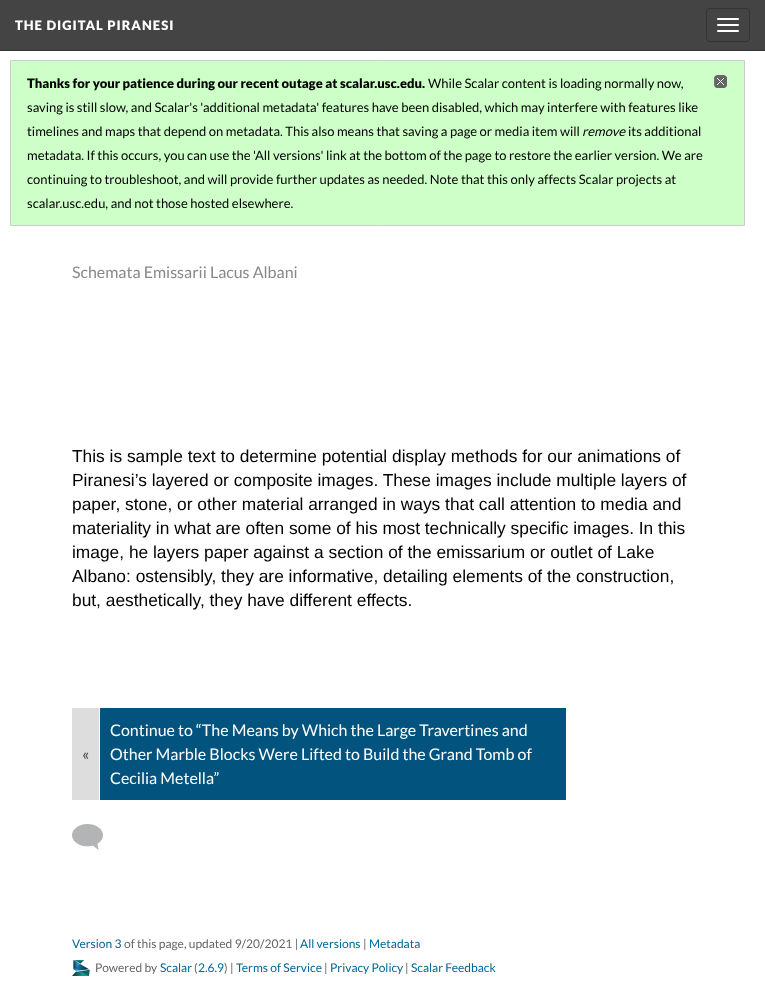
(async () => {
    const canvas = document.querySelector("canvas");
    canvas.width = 765;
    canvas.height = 998;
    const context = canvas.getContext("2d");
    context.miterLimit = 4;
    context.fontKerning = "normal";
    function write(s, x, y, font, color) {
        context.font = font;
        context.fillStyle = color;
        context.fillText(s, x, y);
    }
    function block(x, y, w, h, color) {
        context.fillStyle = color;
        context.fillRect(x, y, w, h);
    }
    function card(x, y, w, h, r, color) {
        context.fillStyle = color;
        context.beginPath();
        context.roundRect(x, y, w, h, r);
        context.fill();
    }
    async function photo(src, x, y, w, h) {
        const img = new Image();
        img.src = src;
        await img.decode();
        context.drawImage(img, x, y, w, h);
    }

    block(0, 0, 765, 998, "rgb(255, 255, 255)");
    block(0, 0, 765, 50, "rgb(68, 68, 68)");
    block(0, 50, 765, 1, "rgb(51, 51, 51)");
    context.letterSpacing = "1px";
    write("THE DIGITAL PIRANESI", 15, 30, "900 13px Lato", "rgb(255, 255, 255)");
    context.beginPath();
    context.roundRect(706.5, 8.5, 43, 33, 3.5);
    context.strokeStyle = "rgb(51, 51, 51)";
    context.stroke();
    card(717, 18, 22, 2, 1, "rgb(255, 255, 255)");
    card(717, 24, 22, 2, 1, "rgb(255, 255, 255)");
    card(717, 30, 22, 2, 1, "rgb(255, 255, 255)");
    context.fillStyle = "rgb(206, 255, 200)";
    context.beginPath();
    context.rect(10.5, 60.5, 734, 165);
    context.fill();
    context.strokeStyle = "rgb(204, 204, 204)";
    context.stroke();
    context.letterSpacing = "0px";
    write("Thanks for your patience during our recent outage at scalar.usc.edu.", 27, 88, "900 13px Lato", "rgb(0, 0, 0)");
    write("While Scalar content is loading normally now,", 428, 88, "13px Lato", "rgb(0, 0, 0)");
    await photo("media/1.png", 714, 75, 13, 13);
    write("saving is still slow, and Scalar's 'additional metadata' features have been disabled, which may interfere with features like", 27, 112, "13px Lato", "rgb(0, 0, 0)");
    write("timelines and maps that depend on metadata. This also means that saving a page or media item will", 27, 136, "13px Lato", "rgb(0, 0, 0)");
    write("remove", 582, 136, "italic 13px Lato", "rgb(0, 0, 0)");
    write("its additional", 628, 136, "13px Lato", "rgb(0, 0, 0)");
    write("metadata. If this occurs, you can use the 'All versions' link at the bottom of the page to restore the earlier version. We are", 27, 160, "13px Lato", "rgb(0, 0, 0)");
    write("continuing to troubleshoot, and will provide further updates as needed. Note that this only affects Scalar projects at", 27, 184, "13px Lato", "rgb(0, 0, 0)");
    write("scalar.usc.edu, and not those hosted elsewhere.", 27, 208, "13px Lato", "rgb(0, 0, 0)");
    write("Schemata Emissarii Lacus Albani", 72, 278, "16px Lato", "rgb(136, 136, 136)");
    write("This is sample text to determine potential display methods for our animations of", 72, 462, "17.35px Liberation Sans", "rgb(0, 0, 0)");
    write("Piranesi’s layered or composite images. These images include multiple layers of", 72, 486, "17.35px Liberation Sans", "rgb(0, 0, 0)");
    write("paper, stone, or other material arranged in ways that call attention to media and", 72, 510, "17.35px Liberation Sans", "rgb(0, 0, 0)");
    write("materiality in what are often some of his most technically specific images. In this", 72, 534, "17.35px Liberation Sans", "rgb(0, 0, 0)");
    write("image, he layers paper against a section of the emissarium or outlet of Lake", 72, 558, "17.35px Liberation Sans", "rgb(0, 0, 0)");
    write("Albano: ostensibly, they are informative, detailing elements of the construction,", 72, 582, "17.35px Liberation Sans", "rgb(0, 0, 0)");
    write("but, aesthetically, they have different effects.", 72, 606, "17.35px Liberation Sans", "rgb(0, 0, 0)");
    block(72, 708, 27, 92, "rgb(221, 221, 221)");
    write("«", 82, 760, "16px Lato", "rgb(68, 68, 68)");
    block(100, 708, 466, 92, "rgb(2, 84, 126)");
    write("Continue to “The Means by Which the Large Travertines and", 110, 736, "16px Lato", "rgb(255, 255, 255)");
    write("Other Marble Blocks Were Lifted to Build the Grand Tomb of", 110, 760, "16px Lato", "rgb(255, 255, 255)");
    write("Cecilia Metella”", 110, 784, "16px Lato", "rgb(255, 255, 255)");
    await photo("media/2.png", 72, 824, 31, 26);
    write("Version 3", 72, 948, "12px Lato", "rgb(2, 102, 151)");
    write("of this page, updated 9/20/2021 |", 124, 948, "12px Lato", "rgb(102, 102, 102)");
    write("All versions", 300, 948, "12px Lato", "rgb(2, 102, 151)");
    write("|", 363, 948, "12px Lato", "rgb(102, 102, 102)");
    write("Metadata", 369, 948, "12px Lato", "rgb(2, 102, 151)");
    await photo("media/3.png", 72, 960, 18, 16);
    write("Powered by", 95, 972, "12px Lato", "rgb(102, 102, 102)");
    write("Scalar", 160, 972, "12px Lato", "rgb(2, 102, 151)");
    write("(", 194, 972, "12px Lato", "rgb(102, 102, 102)");
    write("2.6.9", 198, 972, "12px Lato", "rgb(2, 102, 151)");
    write(") |", 224, 972, "12px Lato", "rgb(102, 102, 102)");
    write("Terms of Service", 236, 972, "12px Lato", "rgb(2, 102, 151)");
    write("|", 324, 972, "12px Lato", "rgb(102, 102, 102)");
    write("Privacy Policy", 330, 972, "12px Lato", "rgb(2, 102, 151)");
    write("|", 405, 972, "12px Lato", "rgb(102, 102, 102)");
    write("Scalar Feedback", 411, 972, "12px Lato", "rgb(2, 102, 151)");
})();
